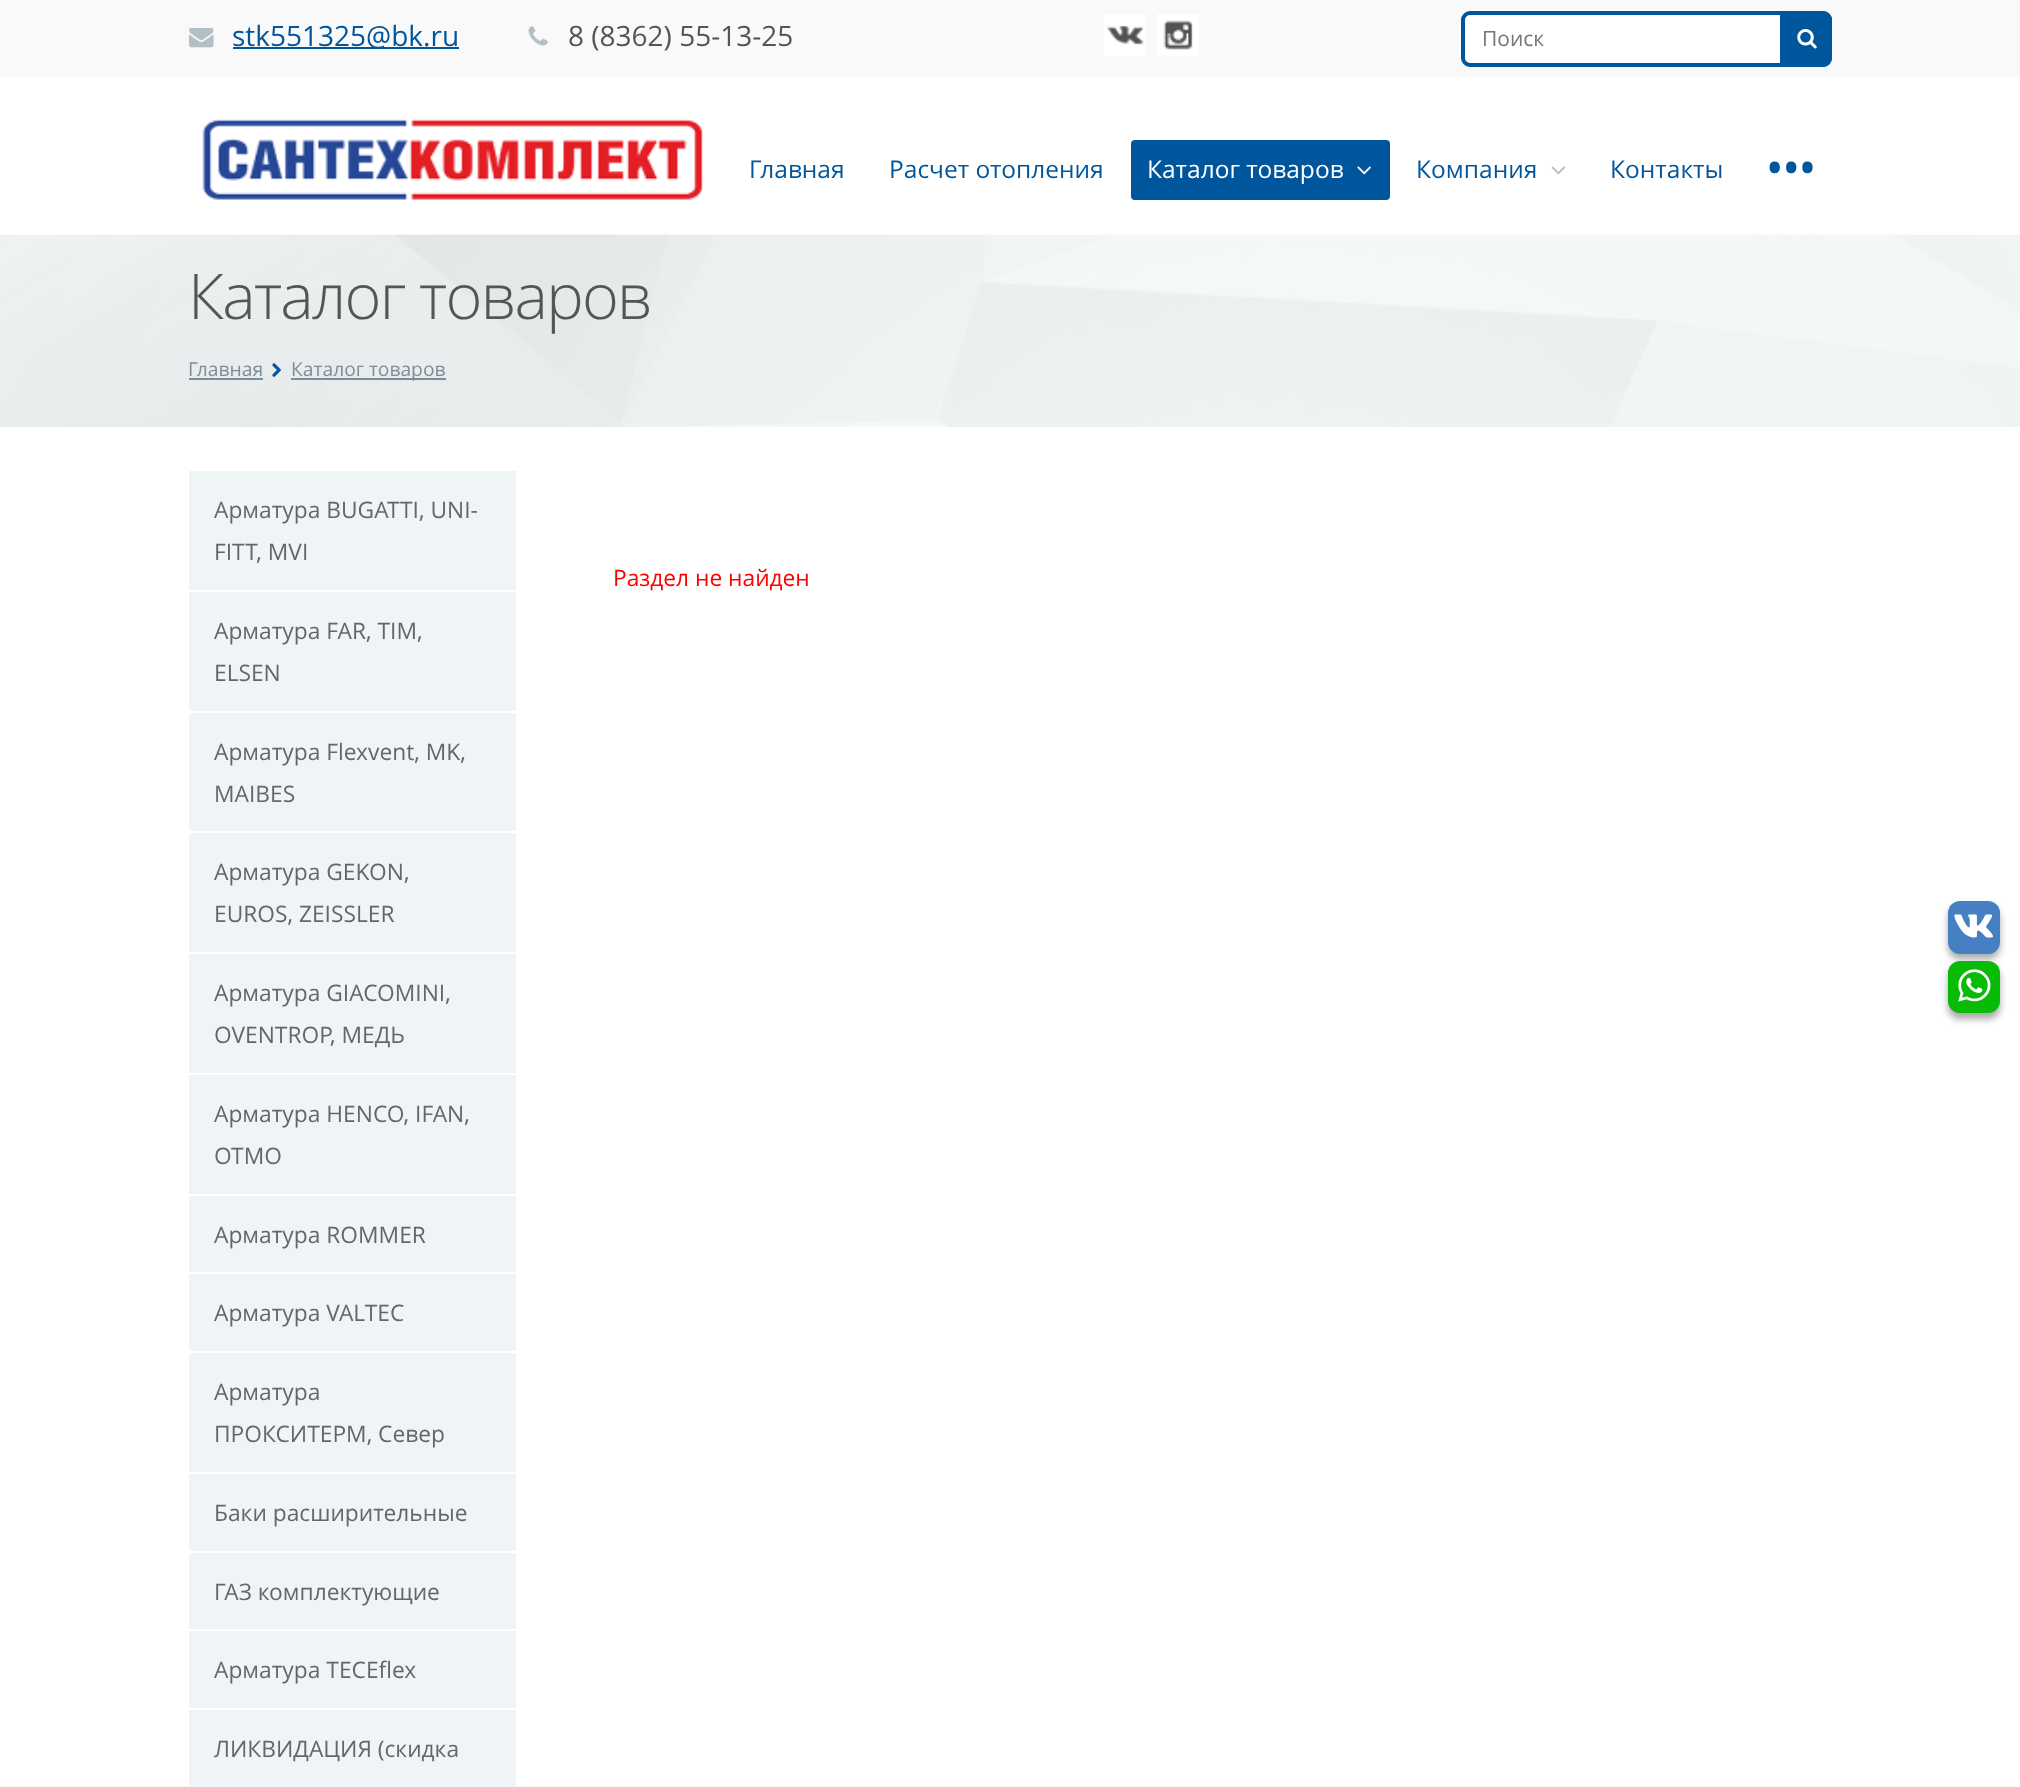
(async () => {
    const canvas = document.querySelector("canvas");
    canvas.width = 2020;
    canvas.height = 1787;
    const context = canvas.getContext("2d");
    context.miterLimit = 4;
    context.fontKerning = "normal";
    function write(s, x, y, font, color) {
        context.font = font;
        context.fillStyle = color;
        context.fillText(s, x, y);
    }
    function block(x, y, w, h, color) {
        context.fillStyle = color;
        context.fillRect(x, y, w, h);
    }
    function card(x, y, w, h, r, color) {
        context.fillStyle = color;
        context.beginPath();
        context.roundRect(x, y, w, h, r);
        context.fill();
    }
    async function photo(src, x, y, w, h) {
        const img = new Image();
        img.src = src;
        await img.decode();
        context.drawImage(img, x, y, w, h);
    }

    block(0, 0, 2020, 1787, "rgb(255, 255, 255)");
    block(0, 0, 2020, 77, "rgb(249, 249, 249)");
    await photo("media/1.png", 189, 28, 25, 20);
    block(233, 47, 226, 2, "rgb(0, 86, 156)");
    write("stk551325@bk.ru", 232, 46, "28px Open Sans", "rgb(0, 86, 156)");
    await photo("media/2.png", 528, 26, 20, 20);
    write("8 (8362) 55-13-25", 568, 46, "28px Open Sans", "rgb(85, 85, 85)");
    block(1104, 14, 42, 42, "rgb(255, 255, 255)");
    await photo("media/3.png", 1107, 25, 37, 20);
    block(1157, 14, 42, 42, "rgb(255, 255, 255)");
    await photo("media/4.png", 1163, 20, 30, 30);
    context.beginPath();
    context.roundRect(1463, 13, 367, 52, 7);
    context.fill();
    context.strokeStyle = "rgb(0, 86, 156)";
    context.lineWidth = 4;
    context.stroke();
    write("Поиск", 1482, 46, "21px Open Sans", "rgb(117, 117, 117)");
    context.fillStyle = "rgb(0, 86, 156)";
    context.beginPath();
    context.roundRect(1780, 11, 52, 56, [0, 9, 9, 0]);
    context.fill();
    await photo("media/5.png", 1797, 29, 20, 20);
    await photo("media/6.png", 202, 118, 502, 82);
    write("Главная", 749, 178, "24.5px Open Sans", "rgb(0, 86, 156)");
    write("Расчет отопления", 889, 178, "24.5px Open Sans", "rgb(0, 86, 156)");
    card(1131, 140, 259, 60, 4, "rgb(0, 86, 156)");
    write("Каталог товаров", 1147, 178, "24.5px Open Sans", "rgb(255, 255, 255)");
    await photo("media/7.png", 1357, 166, 14, 9);
    write("Компания", 1416, 178, "24.5px Open Sans", "rgb(0, 86, 156)");
    await photo("media/8.png", 1551, 166, 15, 9);
    write("Контакты", 1610, 178, "24.5px Open Sans", "rgb(0, 86, 156)");
    context.letterSpacing = "-7px";
    write("...", 1763, 172, "88px Open Sans", "rgb(0, 86, 156)");
    block(0, 235, 2020, 192, "rgb(248, 251, 252)");
    await photo("media/9.png", 0, 234, 2020, 193);
    context.letterSpacing = "-1.75px";
    write("Каталог товаров", 188, 319, "300 63px Open Sans", "rgb(85, 85, 85)");
    context.letterSpacing = "0px";
    write("Главная", 188, 376, "19.25px Open Sans", "rgb(124, 142, 154)");
    block(189, 378, 74, 2, "rgb(124, 142, 154)");
    await photo("media/10.png", 272, 363, 9, 14);
    block(291, 378, 155, 2, "rgb(124, 142, 154)");
    write("Каталог товаров", 291, 376, "19.25px Open Sans", "rgb(124, 142, 154)");
    block(189, 471, 327, 1316, "rgb(239, 245, 247)");
    block(189, 590, 327, 2, "rgb(255, 255, 255)");
    write("Арматура BUGATTI, UNI-", 214, 518, "22.75px Open Sans", "rgb(102, 102, 102)");
    write("FITT, MVI", 214, 560, "22.75px Open Sans", "rgb(102, 102, 102)");
    block(189, 711, 327, 2, "rgb(255, 255, 255)");
    write("Арматура FAR, TIM,", 214, 639, "22.75px Open Sans", "rgb(102, 102, 102)");
    write("ELSEN", 214, 681, "22.75px Open Sans", "rgb(102, 102, 102)");
    block(189, 831, 327, 2, "rgb(255, 255, 255)");
    write("Арматура Flexvent, MK,", 214, 760, "22.75px Open Sans", "rgb(102, 102, 102)");
    write("MAIBES", 214, 802, "22.75px Open Sans", "rgb(102, 102, 102)");
    block(189, 952, 327, 2, "rgb(255, 255, 255)");
    write("Арматура GEKON,", 214, 880, "22.75px Open Sans", "rgb(102, 102, 102)");
    write("EUROS, ZEISSLER", 214, 922, "22.75px Open Sans", "rgb(102, 102, 102)");
    block(189, 1073, 327, 2, "rgb(255, 255, 255)");
    write("Арматура GIACOMINI,", 214, 1001, "22.75px Open Sans", "rgb(102, 102, 102)");
    write("OVENTROP, МЕДЬ", 214, 1043, "22.75px Open Sans", "rgb(102, 102, 102)");
    block(189, 1194, 327, 2, "rgb(255, 255, 255)");
    write("Арматура HENCO, IFAN,", 214, 1122, "22.75px Open Sans", "rgb(102, 102, 102)");
    write("OTMO", 214, 1164, "22.75px Open Sans", "rgb(102, 102, 102)");
    block(189, 1272, 327, 2, "rgb(255, 255, 255)");
    write("Арматура ROMMER", 214, 1243, "22.75px Open Sans", "rgb(102, 102, 102)");
    block(189, 1351, 327, 2, "rgb(255, 255, 255)");
    write("Арматура VALTEC", 214, 1321, "22.75px Open Sans", "rgb(102, 102, 102)");
    block(189, 1472, 327, 2, "rgb(255, 255, 255)");
    write("Арматура", 214, 1400, "22.75px Open Sans", "rgb(102, 102, 102)");
    write("ПРОКСИТЕРМ, Север", 214, 1442, "22.75px Open Sans", "rgb(102, 102, 102)");
    block(189, 1551, 327, 2, "rgb(255, 255, 255)");
    write("Баки расширительные", 214, 1521, "22.75px Open Sans", "rgb(102, 102, 102)");
    block(189, 1629, 327, 2, "rgb(255, 255, 255)");
    write("ГАЗ комплектующие", 214, 1600, "22.75px Open Sans", "rgb(102, 102, 102)");
    block(189, 1708, 327, 2, "rgb(255, 255, 255)");
    write("Арматура TECEflex", 214, 1678, "22.75px Open Sans", "rgb(102, 102, 102)");
    write("ЛИКВИДАЦИЯ (скидка", 214, 1757, "22.75px Open Sans", "rgb(102, 102, 102)");
    write("Раздел не найден", 613, 586, "22.75px Open Sans", "rgb(255, 0, 0)");
    context.fillStyle = "rgb(168, 168, 168)";
    context.filter = "blur(3.5px)";
    context.beginPath();
    context.roundRect(1948, 907, 52, 52, 12);
    context.fill();
    context.filter = "none";
    card(1948, 901, 52, 53, 12, "rgb(70, 127, 194)");
    await photo("media/11.png", 1954, 914, 39, 24);
    context.fillStyle = "rgb(168, 168, 168)";
    context.filter = "blur(3.5px)";
    context.beginPath();
    context.roundRect(1948, 966, 52, 53, 12);
    context.fill();
    context.filter = "none";
    card(1948, 961, 52, 52, 12, "rgb(8, 187, 7)");
    await photo("media/12.png", 1958, 969, 33, 33);
})();
